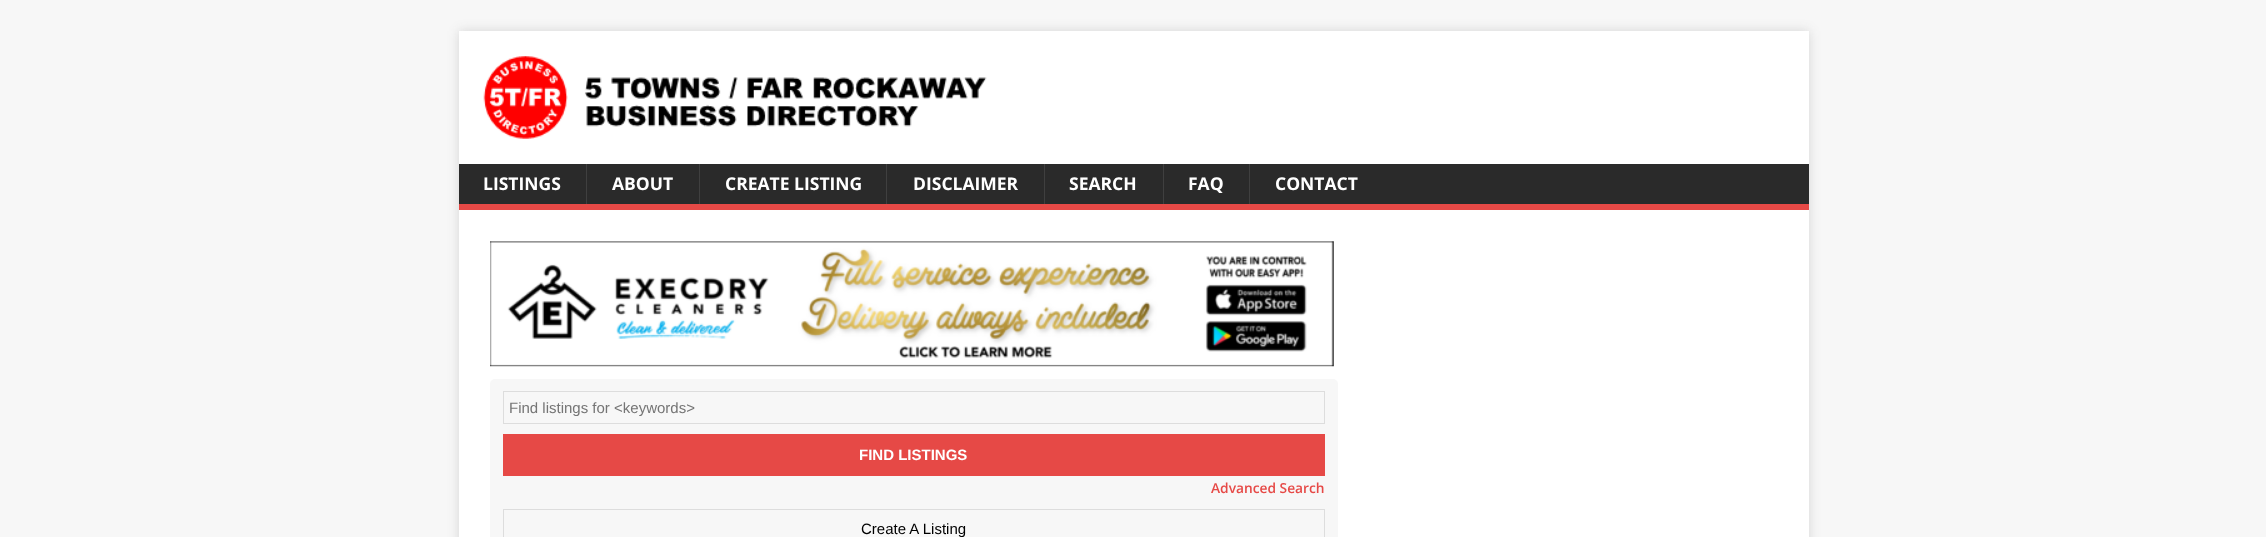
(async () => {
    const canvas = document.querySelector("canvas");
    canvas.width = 2266;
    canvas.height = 537;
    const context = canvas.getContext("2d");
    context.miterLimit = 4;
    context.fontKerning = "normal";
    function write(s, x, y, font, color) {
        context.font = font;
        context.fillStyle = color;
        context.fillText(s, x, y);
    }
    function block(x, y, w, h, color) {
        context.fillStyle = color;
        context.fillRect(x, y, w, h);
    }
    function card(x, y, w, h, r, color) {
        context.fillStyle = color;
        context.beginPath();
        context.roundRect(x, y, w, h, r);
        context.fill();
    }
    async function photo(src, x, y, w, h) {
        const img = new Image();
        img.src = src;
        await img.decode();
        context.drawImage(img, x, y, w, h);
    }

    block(0, 0, 2266, 537, "rgb(247, 247, 247)");
    context.fillStyle = "rgba(50, 50, 50, 0.17)";
    context.filter = "blur(6px)";
    context.beginPath();
    context.rect(459, 31, 1350, 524);
    context.fill();
    context.filter = "none";
    block(459, 31, 1350, 133, "rgb(255, 255, 255)");
    await photo("media/1.png", 483, 56, 504, 83);
    block(459, 164, 1350, 40, "rgb(42, 42, 42)");
    block(459, 204, 1350, 6, "rgb(230, 73, 70)");
    write("LISTINGS", 483, 190, "bold 17.5px Open Sans", "rgb(255, 255, 255)");
    block(586, 164, 1, 40, "rgb(63, 63, 63)");
    write("ABOUT", 612, 190, "bold 17.5px Open Sans", "rgb(255, 255, 255)");
    block(699, 164, 1, 40, "rgb(63, 63, 63)");
    write("CREATE LISTING", 725, 190, "bold 17.5px Open Sans", "rgb(255, 255, 255)");
    block(886, 164, 1, 40, "rgb(63, 63, 63)");
    write("DISCLAIMER", 913, 190, "bold 17.5px Open Sans", "rgb(255, 255, 255)");
    block(1044, 164, 1, 40, "rgb(63, 63, 63)");
    write("SEARCH", 1069, 190, "bold 17.5px Open Sans", "rgb(255, 255, 255)");
    block(1163, 164, 1, 40, "rgb(63, 63, 63)");
    write("FAQ", 1188, 190, "bold 17.5px Open Sans", "rgb(255, 255, 255)");
    block(1249, 164, 1, 40, "rgb(63, 63, 63)");
    write("CONTACT", 1275, 190, "bold 17.5px Open Sans", "rgb(255, 255, 255)");
    block(459, 210, 1350, 327, "rgb(255, 255, 255)");
    await photo("media/2.png", 490, 241, 844, 126);
    card(490, 379, 848, 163, 5, "rgb(247, 247, 247)");
    context.strokeStyle = "rgb(221, 221, 221)";
    context.strokeRect(503.5, 391.5, 821, 32);
    write("Find listings for <keywords>", 509, 413, "15px Liberation Sans", "rgb(117, 117, 117)");
    block(503, 434, 822, 42, "rgb(230, 73, 70)");
    write("FIND LISTINGS", 859, 460, "bold 15px Liberation Sans", "rgb(255, 255, 255)");
    write("Advanced Search", 1211, 493, "600 13.75px Open Sans", "rgb(230, 73, 70)");
    context.strokeRect(503.5, 509.5, 821, 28);
    write("Create A Listing", 861, 534, "15px Liberation Sans", "rgb(0, 0, 0)");
})();
